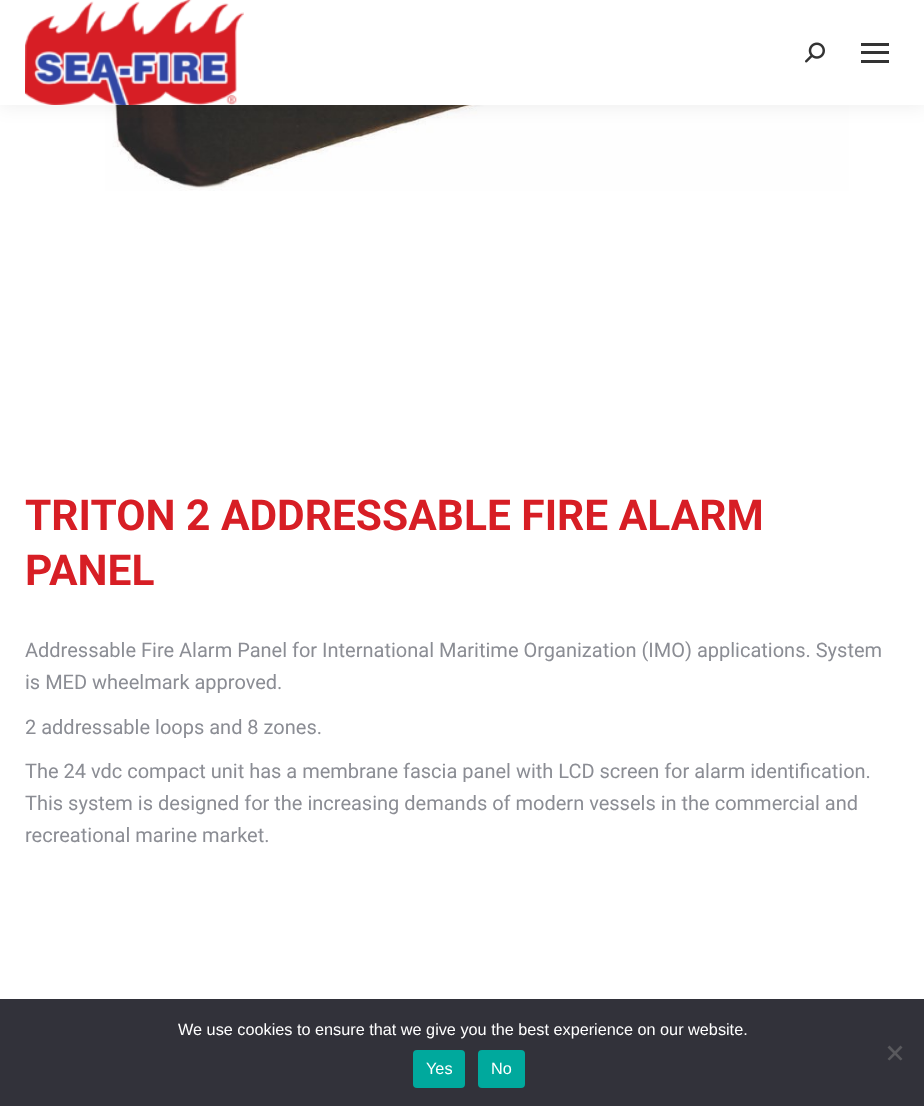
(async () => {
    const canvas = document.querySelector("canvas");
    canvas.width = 924;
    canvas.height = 1106;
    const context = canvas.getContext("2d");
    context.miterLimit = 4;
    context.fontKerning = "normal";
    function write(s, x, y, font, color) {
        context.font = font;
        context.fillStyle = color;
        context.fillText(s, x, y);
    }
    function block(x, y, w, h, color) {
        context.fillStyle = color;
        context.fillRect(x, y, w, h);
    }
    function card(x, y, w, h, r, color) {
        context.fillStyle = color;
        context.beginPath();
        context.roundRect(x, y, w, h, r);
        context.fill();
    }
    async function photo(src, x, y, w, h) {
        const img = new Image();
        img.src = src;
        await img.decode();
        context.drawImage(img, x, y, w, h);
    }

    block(0, 0, 924, 1106, "rgb(255, 255, 255)");
    await photo("media/3.png", 105, 105, 744, 86);
    context.fillStyle = "rgba(0, 0, 0, 0.07)";
    context.filter = "blur(9.5px)";
    context.beginPath();
    context.rect(-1, -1, 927, 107);
    context.fill();
    context.filter = "none";
    block(0, 0, 924, 105, "rgb(255, 255, 255)");
    await photo("media/1.png", 25, 0, 219, 105);
    await photo("media/2.png", 805, 42, 20, 21);
    block(861, 43, 28, 3, "rgb(51, 51, 51)");
    block(861, 51, 28, 3, "rgb(51, 51, 51)");
    block(861, 60, 28, 3, "rgb(51, 51, 51)");
    write("TRITON 2 ADDRESSABLE FIRE ALARM", 25, 530, "bold 42.5px Roboto", "rgb(215, 30, 37)");
    write("PANEL", 25, 585, "bold 42.5px Roboto", "rgb(215, 30, 37)");
    write("Addressable Fire Alarm Panel for International Maritime Organization (IMO) applications. System", 25, 657, "20px Roboto", "rgb(139, 141, 148)");
    write("is MED wheelmark approved.", 25, 689, "20px Roboto", "rgb(139, 141, 148)");
    write("2 addressable loops and 8 zones.", 25, 734, "20px Roboto", "rgb(139, 141, 148)");
    write("The 24 vdc compact unit has a membrane fascia panel with LCD screen for alarm identification.", 25, 778, "20px Roboto", "rgb(139, 141, 148)");
    write("This system is designed for the increasing demands of modern vessels in the commercial and", 25, 810, "20px Roboto", "rgb(139, 141, 148)");
    write("recreational marine market.", 25, 842, "20px Roboto", "rgb(139, 141, 148)");
    block(0, 999, 924, 107, "rgb(50, 50, 58)");
    write("We use cookies to ensure that we give you the best experience on our website.", 178, 1035, "16.25px Liberation Sans", "rgb(255, 255, 255)");
    context.fillStyle = "rgb(89, 89, 93)";
    context.beginPath();
    context.moveTo(900.5, 1045.5);
    context.lineTo(902.5, 1047.5);
    context.lineTo(889.5, 1060.5);
    context.lineTo(887.5, 1059);
    context.closePath();
    context.fill();
    context.beginPath();
    context.moveTo(887.5, 1047.5);
    context.lineTo(889.5, 1045.5);
    context.lineTo(902.5, 1059);
    context.lineTo(900.5, 1060.5);
    context.closePath();
    context.fill();
    card(413, 1050, 52, 38, 4, "rgb(0, 169, 157)");
    write("Yes", 426, 1074, "16.25px Liberation Sans", "rgb(255, 255, 255)");
    card(478, 1050, 47, 38, 4, "rgb(0, 169, 157)");
    write("No", 491, 1074, "16.25px Liberation Sans", "rgb(255, 255, 255)");
})();
